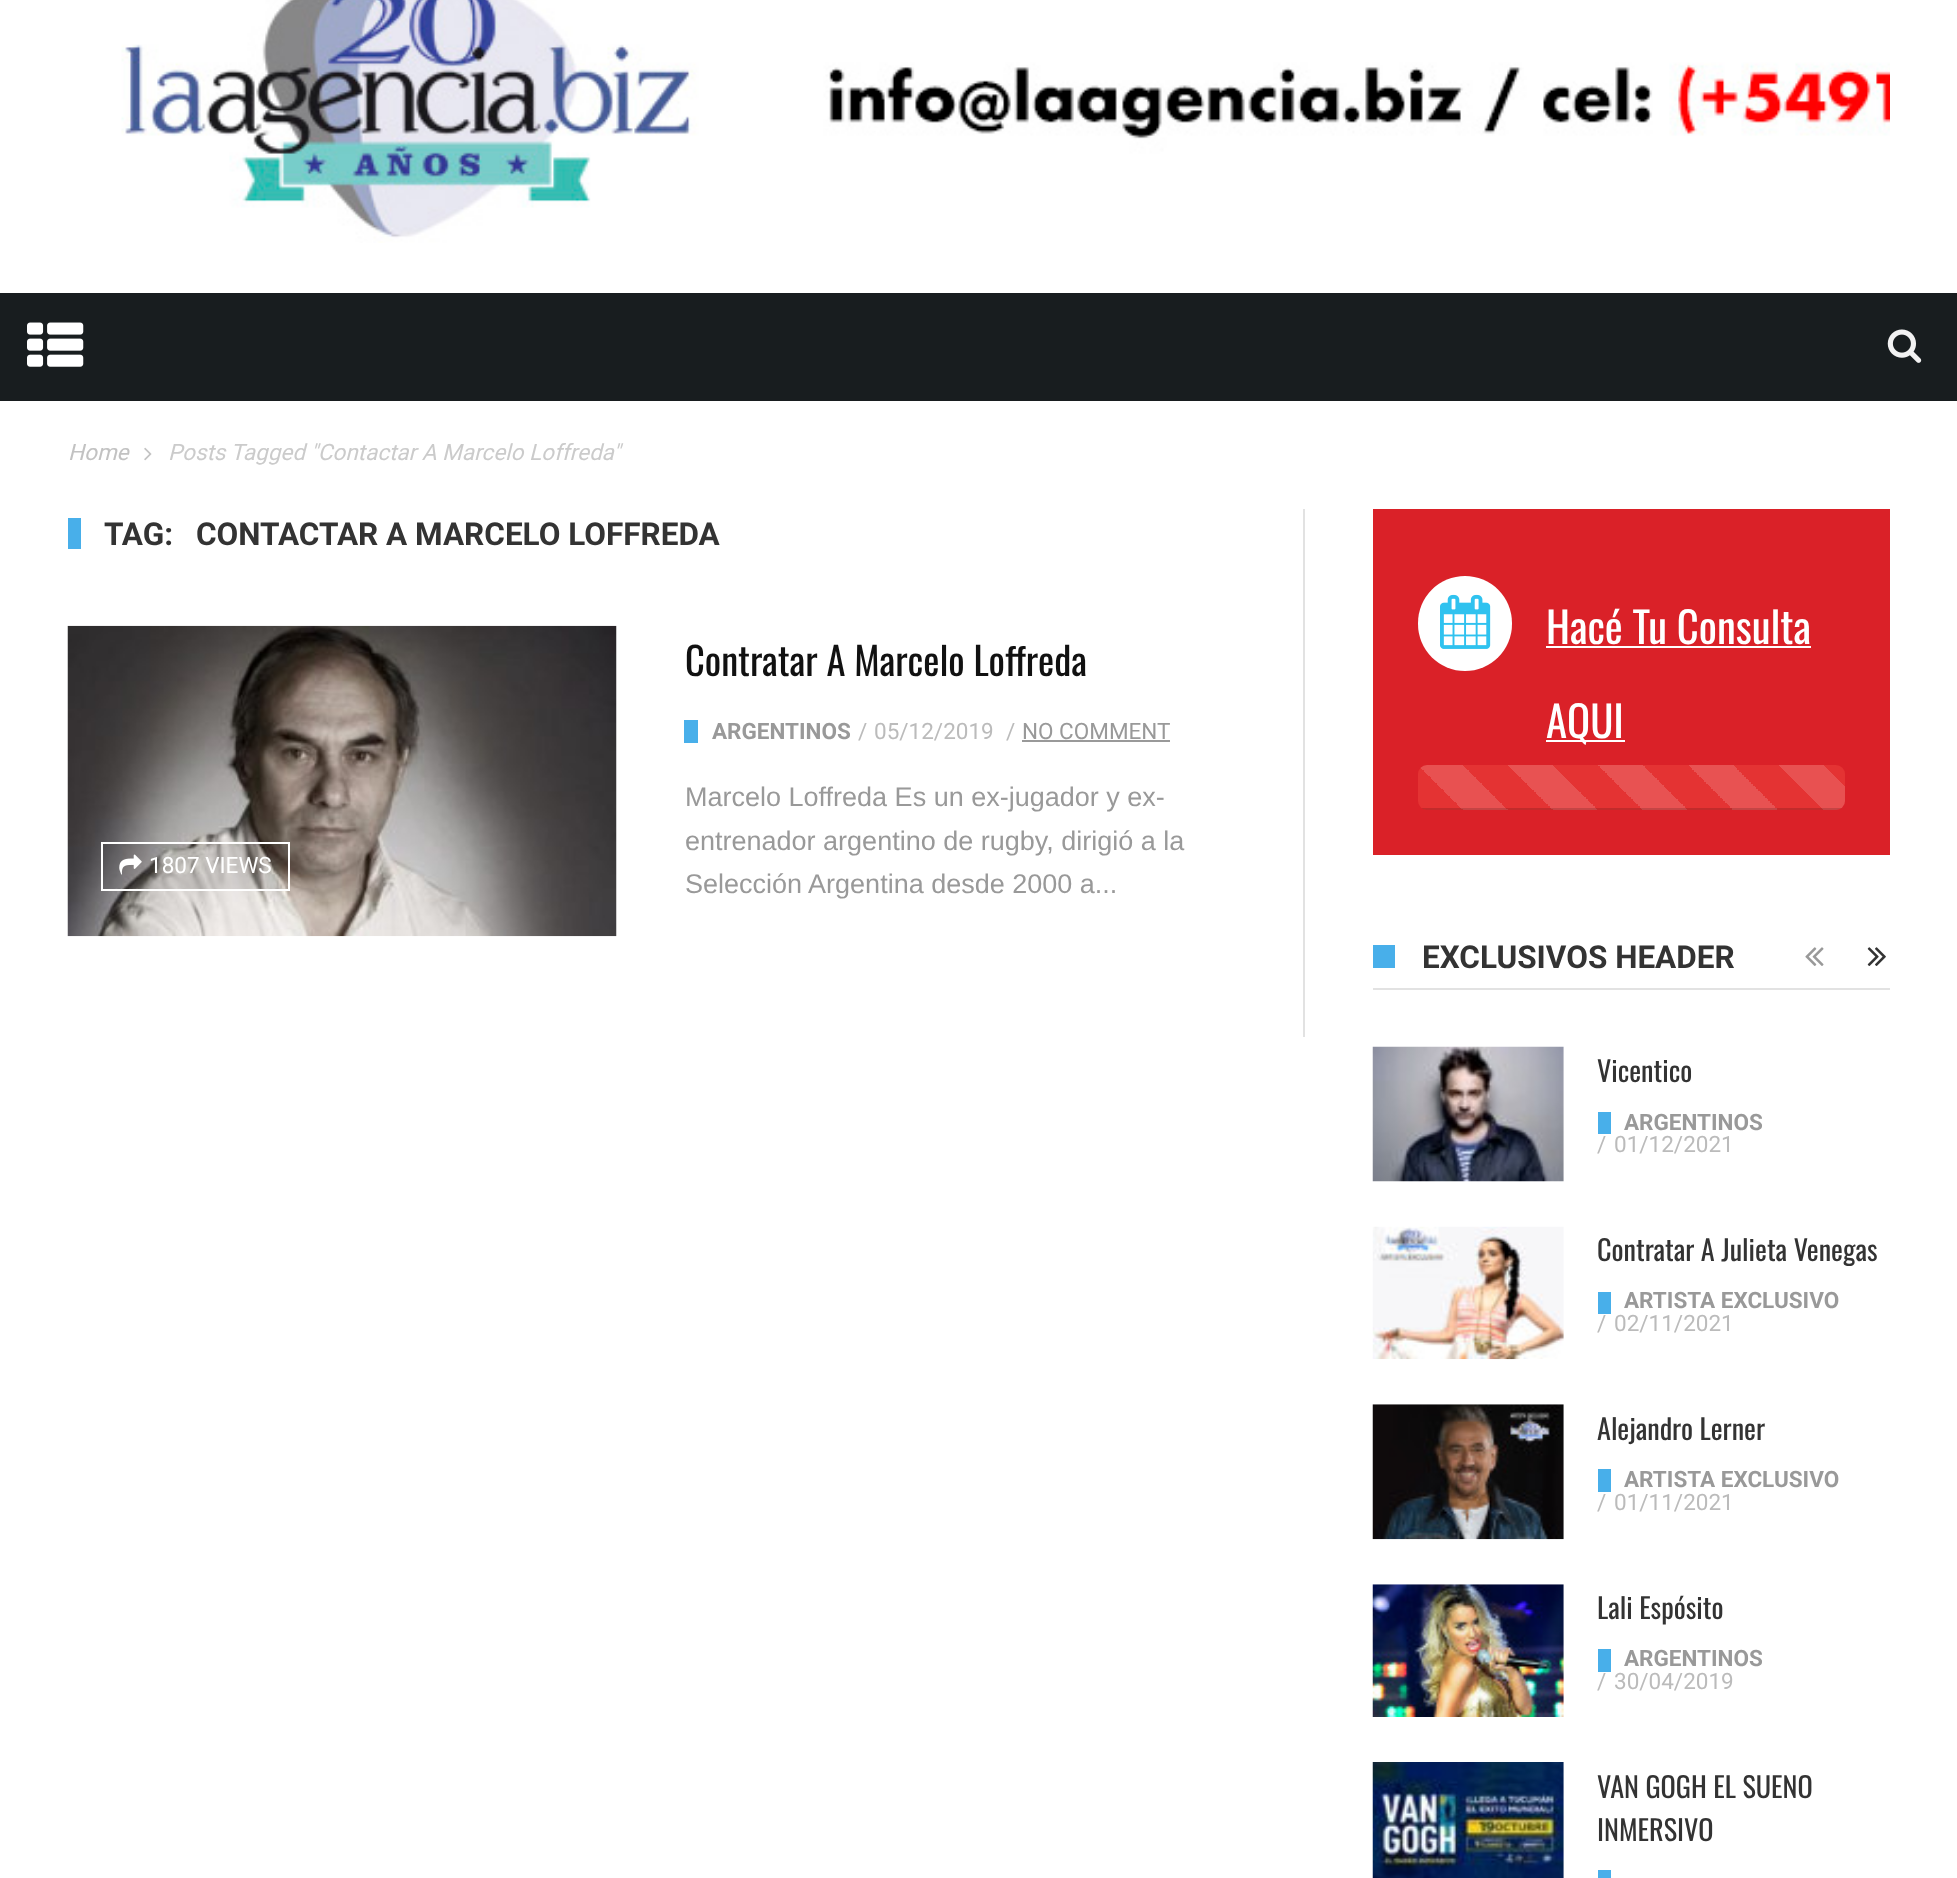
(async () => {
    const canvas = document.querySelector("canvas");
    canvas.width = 1957;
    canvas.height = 1878;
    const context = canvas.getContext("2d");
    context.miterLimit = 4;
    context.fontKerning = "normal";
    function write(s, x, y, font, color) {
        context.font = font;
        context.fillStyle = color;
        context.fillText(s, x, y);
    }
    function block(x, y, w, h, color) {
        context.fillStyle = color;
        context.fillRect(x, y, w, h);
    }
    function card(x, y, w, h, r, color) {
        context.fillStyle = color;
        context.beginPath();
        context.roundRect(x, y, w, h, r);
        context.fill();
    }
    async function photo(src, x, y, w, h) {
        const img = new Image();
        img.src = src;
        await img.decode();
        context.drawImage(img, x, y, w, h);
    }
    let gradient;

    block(0, 0, 1957, 1878, "rgb(255, 255, 255)");
    await photo("media/1.png", 121, 0, 1769, 243);
    block(0, 293, 1957, 108, "rgb(24, 29, 31)");
    await photo("media/2.png", 27, 322, 57, 45);
    await photo("media/3.png", 1887, 329, 35, 34);
    write("Home", 68, 460, "italic 22.5px Roboto", "rgb(194, 194, 194)");
    await photo("media/4.png", 144, 447, 8, 14);
    write("Posts Tagged \"Contactar A Marcelo Loffreda\"", 168, 460, "italic 22.5px Roboto", "rgb(203, 203, 203)");
    block(1303, 509, 2, 528, "rgb(226, 226, 226)");
    block(68, 518, 13, 31, "rgb(72, 175, 234)");
    write("TAG:", 104, 545, "bold 31.5px Roboto", "rgb(51, 51, 51)");
    write("CONTACTAR A MARCELO LOFFREDA", 196, 545, "bold 31.5px Roboto", "rgb(51, 51, 51)");
    await photo("media/5.png", 67, 625, 550, 312);
    context.fillStyle = "rgba(0, 0, 0, 0.1)";
    context.beginPath();
    context.rect(102, 843, 187, 47);
    context.fill();
    context.strokeStyle = "rgb(255, 255, 255)";
    context.lineWidth = 2;
    context.stroke();
    await photo("media/6.png", 119, 854, 23, 21);
    write("1807 VIEWS", 149, 873, "22.5px Roboto", "rgb(255, 255, 255)");
    write("Contratar A Marcelo Loffreda", 685, 676, "38.5px Oswald", "rgb(17, 17, 17)");
    block(684, 720, 14, 23, "rgb(72, 175, 234)");
    write("ARGENTINOS", 712, 739, "bold 22.5px Roboto", "rgb(153, 153, 153)");
    write("/", 858, 739, "22.5px Roboto", "rgb(187, 187, 187)");
    write("05/12/2019", 874, 739, "22.5px Roboto", "rgb(187, 187, 187)");
    write("/", 1006, 739, "22.5px Roboto", "rgb(187, 187, 187)");
    write("NO COMMENT", 1022, 739, "22.5px Roboto", "rgb(153, 153, 153)");
    block(1022, 740, 148, 2, "rgb(153, 153, 153)");
    write("Marcelo Loffreda Es un ex-jugador y ex-", 685, 806, "27px Liberation Sans", "rgb(153, 153, 153)");
    write("entrenador argentino de rugby, dirigió a la", 685, 850, "27px Liberation Sans", "rgb(153, 153, 153)");
    write("Selección Argentina desde 2000 a...", 685, 893, "27px Liberation Sans", "rgb(153, 153, 153)");
    block(1373, 509, 517, 346, "rgb(218, 33, 40)");
    card(1418, 576, 94, 95, 47, "rgb(255, 255, 255)");
    await photo("media/7.png", 1440, 594, 51, 55);
    write("Hacé Tu Consulta", 1546, 644, "42.75px Oswald", "rgb(255, 255, 255)");
    block(1546, 646, 265, 2, "rgb(255, 255, 255)");
    block(1546, 740, 79, 2, "rgb(255, 255, 255)");
    write("AQUI", 1546, 738, "42.75px Oswald", "rgb(255, 255, 255)");
    card(1418, 765, 427, 45, 9, "rgb(228, 51, 51)");
    gradient = context.createLinearGradient(1418, 855, 1508, 765);
    gradient.addColorStop(0.25, "rgba(255, 255, 255, 0.15)");
    gradient.addColorStop(0.25, "rgba(255, 255, 255, 0)");
    gradient.addColorStop(0.5, "rgba(255, 255, 255, 0)");
    gradient.addColorStop(0.5, "rgba(255, 255, 255, 0.15)");
    gradient.addColorStop(0.75, "rgba(255, 255, 255, 0.15)");
    gradient.addColorStop(0.75, "rgba(255, 255, 255, 0)");
    gradient.addColorStop(1, "rgba(0, 0, 0, 0)");
    context.fillStyle = gradient;
    context.beginPath();
    context.roundRect(1418, 765, 90, 45, [9, 0, 0, 9]);
    context.fill();
    gradient = context.createLinearGradient(1508, 855, 1598, 765);
    gradient.addColorStop(0.25, "rgb(232, 82, 82)");
    gradient.addColorStop(0.25, "rgb(228, 51, 51)");
    gradient.addColorStop(0.5, "rgb(228, 51, 51)");
    gradient.addColorStop(0.5, "rgb(232, 82, 82)");
    gradient.addColorStop(0.75, "rgb(232, 82, 82)");
    gradient.addColorStop(0.75, "rgb(228, 51, 51)");
    gradient.addColorStop(1, "rgb(228, 51, 51)");
    context.fillStyle = gradient;
    context.fillRect(1508, 765, 90, 45);
    gradient = context.createLinearGradient(1598, 855, 1688, 765);
    gradient.addColorStop(0.25, "rgb(232, 82, 82)");
    gradient.addColorStop(0.25, "rgb(228, 51, 51)");
    gradient.addColorStop(0.5, "rgb(228, 51, 51)");
    gradient.addColorStop(0.5, "rgb(232, 82, 82)");
    gradient.addColorStop(0.75, "rgb(232, 82, 82)");
    gradient.addColorStop(0.75, "rgb(228, 51, 51)");
    gradient.addColorStop(1, "rgb(228, 51, 51)");
    context.fillStyle = gradient;
    context.fillRect(1598, 765, 90, 45);
    gradient = context.createLinearGradient(1688, 855, 1778, 765);
    gradient.addColorStop(0.25, "rgb(232, 82, 82)");
    gradient.addColorStop(0.25, "rgb(228, 51, 51)");
    gradient.addColorStop(0.5, "rgb(228, 51, 51)");
    gradient.addColorStop(0.5, "rgb(232, 82, 82)");
    gradient.addColorStop(0.75, "rgb(232, 82, 82)");
    gradient.addColorStop(0.75, "rgb(228, 51, 51)");
    gradient.addColorStop(1, "rgb(228, 51, 51)");
    context.fillStyle = gradient;
    context.fillRect(1688, 765, 90, 45);
    gradient = context.createLinearGradient(1778, 855, 1868, 765);
    gradient.addColorStop(0.25, "rgba(255, 255, 255, 0.15)");
    gradient.addColorStop(0.25, "rgba(255, 255, 255, 0)");
    gradient.addColorStop(0.5, "rgba(255, 255, 255, 0)");
    gradient.addColorStop(0.5, "rgba(255, 255, 255, 0.15)");
    gradient.addColorStop(0.75, "rgba(255, 255, 255, 0.15)");
    gradient.addColorStop(0.75, "rgba(255, 255, 255, 0)");
    gradient.addColorStop(1, "rgba(0, 0, 0, 0)");
    context.fillStyle = gradient;
    context.beginPath();
    context.roundRect(1778, 765, 67, 45, [0, 9, 9, 0]);
    context.fill();
    context.save();
    context.beginPath();
    context.roundRect(1418, 765, 427, 45, 9);
    context.clip();
    block(1418, 808, 427, 2, "rgba(0, 0, 0, 0.15)");
    context.restore();
    block(1373, 988, 517, 2, "rgb(226, 226, 226)");
    block(1373, 945, 22, 23, "rgb(72, 175, 234)");
    write("EXCLUSIVOS HEADER", 1422, 968, "bold 31.5px Roboto", "rgb(51, 51, 51)");
    await photo("media/8.png", 1805, 947, 19, 19);
    await photo("media/9.png", 1867, 947, 19, 19);
    await photo("media/10.png", 1372, 1046, 192, 136);
    write("Vicentico", 1597, 1082, "28.25px Oswald", "rgb(51, 51, 51)");
    block(1598, 1112, 13, 22, "rgb(72, 175, 234)");
    write("ARGENTINOS", 1624, 1130, "bold 22.5px Roboto", "rgb(153, 153, 153)");
    write("/", 1597, 1152, "22.5px Roboto", "rgb(187, 187, 187)");
    write("01/12/2021", 1614, 1152, "22.5px Roboto", "rgb(187, 187, 187)");
    await photo("media/11.png", 1372, 1226, 192, 134);
    write("Contratar A Julieta Venegas", 1597, 1261, "28.25px Oswald", "rgb(51, 51, 51)");
    block(1598, 1292, 13, 22, "rgb(72, 175, 234)");
    write("ARTISTA EXCLUSIVO", 1624, 1308, "bold 22.5px Roboto", "rgb(153, 153, 153)");
    write("/", 1597, 1331, "22.5px Roboto", "rgb(187, 187, 187)");
    write("02/11/2021", 1614, 1331, "22.5px Roboto", "rgb(187, 187, 187)");
    await photo("media/12.png", 1372, 1404, 192, 136);
    write("Alejandro Lerner", 1597, 1440, "28.25px Oswald", "rgb(51, 51, 51)");
    block(1598, 1469, 13, 23, "rgb(72, 175, 234)");
    write("ARTISTA EXCLUSIVO", 1624, 1487, "bold 22.5px Roboto", "rgb(153, 153, 153)");
    write("/", 1597, 1510, "22.5px Roboto", "rgb(187, 187, 187)");
    write("01/11/2021", 1614, 1510, "22.5px Roboto", "rgb(187, 187, 187)");
    await photo("media/13.png", 1372, 1584, 192, 133);
    write("Lali Espósito", 1597, 1619, "28.25px Oswald", "rgb(51, 51, 51)");
    block(1598, 1649, 13, 23, "rgb(72, 175, 234)");
    write("ARGENTINOS", 1624, 1666, "bold 22.5px Roboto", "rgb(153, 153, 153)");
    write("/", 1597, 1689, "22.5px Roboto", "rgb(187, 187, 187)");
    write("30/04/2019", 1614, 1689, "22.5px Roboto", "rgb(187, 187, 187)");
    await photo("media/14.png", 1372, 1762, 192, 116);
    write("VAN GOGH EL SUENO", 1597, 1798, "28.25px Oswald", "rgb(51, 51, 51)");
    write("INMERSIVO", 1597, 1841, "28.25px Oswald", "rgb(51, 51, 51)");
    block(1598, 1870, 13, 8, "rgb(72, 175, 234)");
})();
